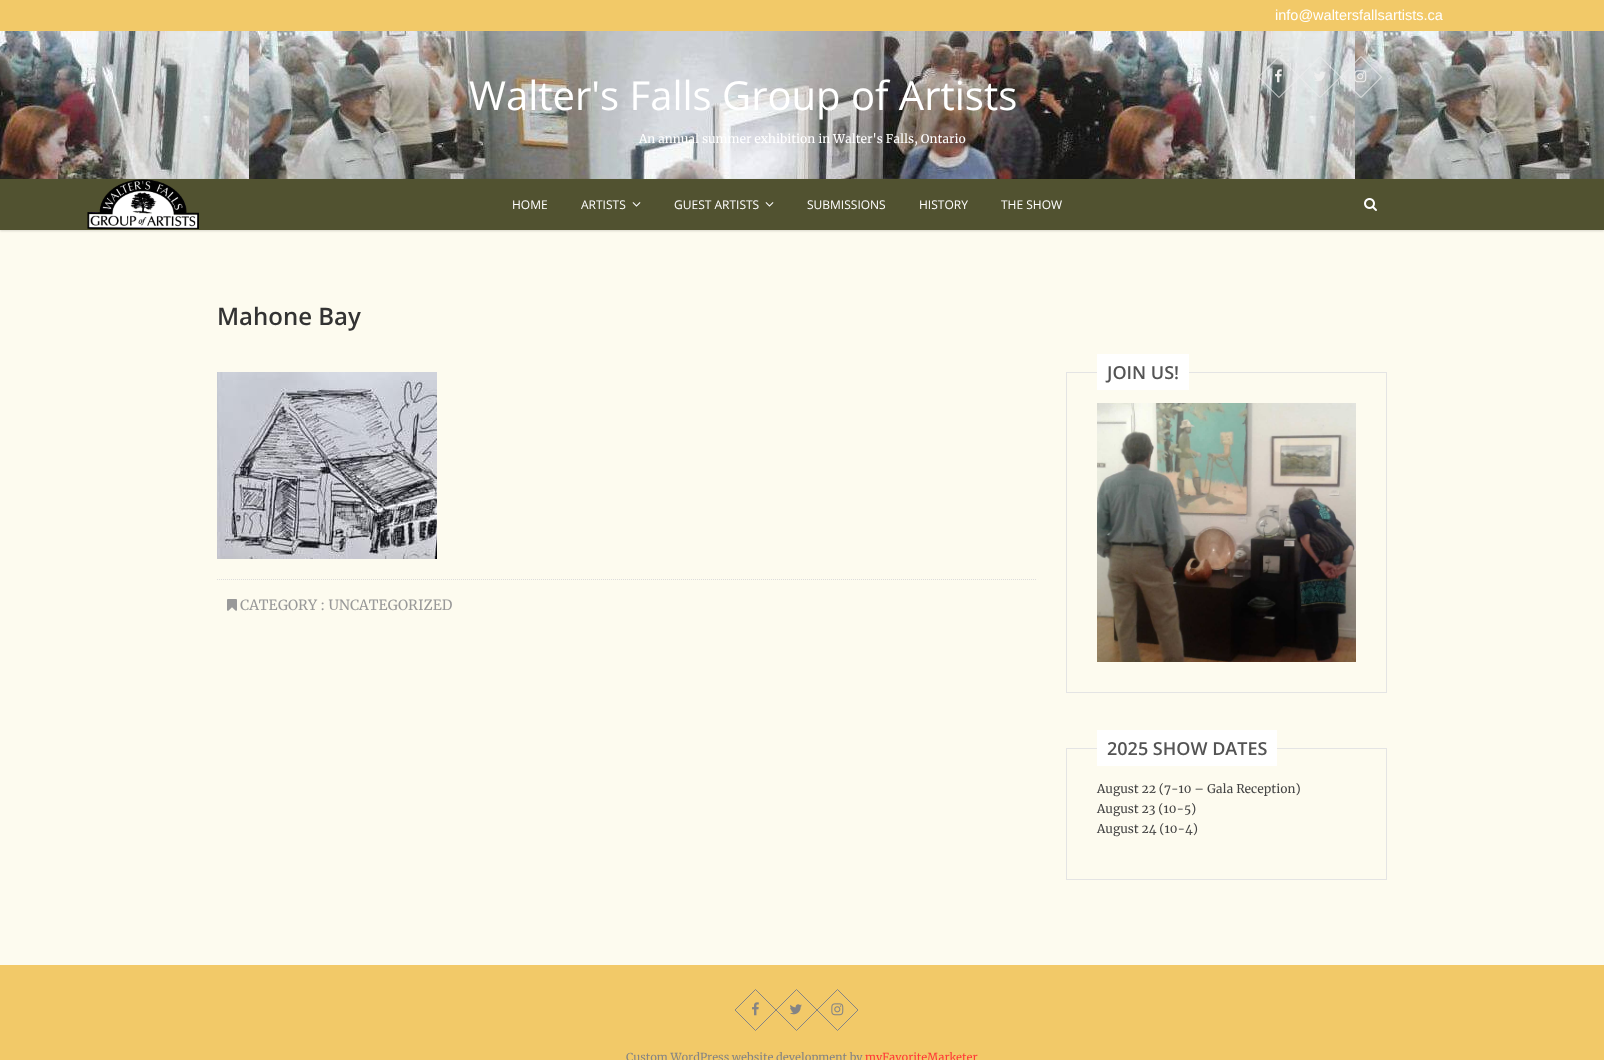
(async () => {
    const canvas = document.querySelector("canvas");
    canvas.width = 1604;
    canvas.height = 1060;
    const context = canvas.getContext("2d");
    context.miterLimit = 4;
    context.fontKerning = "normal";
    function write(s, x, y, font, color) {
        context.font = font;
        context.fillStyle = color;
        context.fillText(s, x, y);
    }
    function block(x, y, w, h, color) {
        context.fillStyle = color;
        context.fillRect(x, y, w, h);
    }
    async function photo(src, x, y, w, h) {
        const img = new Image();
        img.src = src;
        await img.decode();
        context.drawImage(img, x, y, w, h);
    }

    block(0, 0, 1604, 1060, "rgb(253, 251, 239)");
    block(0, 0, 1604, 31, "rgb(242, 201, 104)");
    write("info@waltersfallsartists.ca", 1275, 20, "14.5px Liberation Sans", "rgb(255, 255, 255)");
    await photo("media/1.png", 0, 31, 1604, 148);
    write("Walter's Falls Group of Artists", 469, 110, "40px Open Sans", "rgb(255, 255, 255)");
    write("An annual summer exhibition in Walter's Falls, Ontario", 639, 143, "12px Merriweather", "rgb(255, 255, 255)");
    context.beginPath();
    context.moveTo(1258.5, 77);
    context.lineTo(1279, 56.5);
    context.lineTo(1299.5, 77);
    context.lineTo(1279, 97.5);
    context.closePath();
    context.strokeStyle = "rgb(238, 238, 238)";
    context.stroke();
    await photo("media/2.png", 1275, 69, 7, 14);
    context.beginPath();
    context.moveTo(1299.5, 77);
    context.lineTo(1320, 56.5);
    context.lineTo(1340.5, 77);
    context.lineTo(1320, 97.5);
    context.closePath();
    context.stroke();
    await photo("media/3.png", 1314, 71, 12, 11);
    context.beginPath();
    context.moveTo(1340.5, 77);
    context.lineTo(1361, 56.5);
    context.lineTo(1381.5, 77);
    context.lineTo(1361, 97.5);
    context.closePath();
    context.stroke();
    await photo("media/4.png", 1354, 70, 13, 13);
    context.fillStyle = "rgba(0, 0, 0, 0.15)";
    context.filter = "blur(1px)";
    context.beginPath();
    context.rect(0, 180, 1604, 51);
    context.fill();
    context.filter = "none";
    block(0, 179, 1604, 51, "rgb(81, 82, 48)");
    await photo("media/5.png", 87, 179, 112, 50);
    write("HOME", 512, 209, "12px Open Sans", "rgb(255, 255, 255)");
    write("ARTISTS", 581, 209, "12px Open Sans", "rgb(255, 255, 255)");
    await photo("media/6.png", 632, 202, 9, 5);
    write("GUEST ARTISTS", 674, 209, "12px Open Sans", "rgb(255, 255, 255)");
    await photo("media/6.png", 765, 202, 9, 5);
    write("SUBMISSIONS", 807, 209, "12px Open Sans", "rgb(255, 255, 255)");
    write("HISTORY", 919, 209, "12px Open Sans", "rgb(255, 255, 255)");
    write("THE SHOW", 1001, 209, "12px Open Sans", "rgb(255, 255, 255)");
    await photo("media/7.png", 1364, 198, 13, 13);
    write("Mahone Bay", 217, 325, "600 24px Open Sans", "rgb(51, 51, 51)");
    await photo("media/8.png", 217, 372, 220, 187);
    context.beginPath();
    context.moveTo(217, 579.5);
    context.lineTo(1036, 579.5);
    context.strokeStyle = "rgb(221, 221, 221)";
    context.setLineDash([1, 1]);
    context.stroke();
    await photo("media/9.png", 227, 599, 10, 12);
    write("CATEGORY : UNCATEGORIZED", 240, 610, "14px Merriweather", "rgb(153, 153, 153)");
    context.strokeStyle = "rgb(228, 228, 228)";
    context.setLineDash([]);
    context.strokeRect(1066.5, 372.5, 320, 320);
    block(1097, 354, 92, 36, "rgb(255, 255, 255)");
    write("JOIN US!", 1107, 379, "600 18px Open Sans", "rgb(84, 84, 84)");
    await photo("media/10.png", 1097, 403, 259, 259);
    context.strokeRect(1066.5, 748.5, 320, 131);
    block(1097, 730, 180, 36, "rgb(255, 255, 255)");
    write("2025 SHOW DATES", 1107, 755, "600 18px Open Sans", "rgb(84, 84, 84)");
    write("August 22 (7-10 – Gala Reception)", 1097, 793, "12px Merriweather", "rgb(68, 68, 68)");
    write("August 23 (10-5)", 1097, 813, "12px Merriweather", "rgb(68, 68, 68)");
    write("August 24 (10-4)", 1097, 833, "12px Merriweather", "rgb(68, 68, 68)");
    block(0, 965, 1604, 95, "rgb(242, 201, 104)");
    context.beginPath();
    context.moveTo(735, 1010);
    context.lineTo(755.5, 989.5);
    context.lineTo(776, 1010);
    context.lineTo(755.5, 1030.5);
    context.closePath();
    context.strokeStyle = "rgb(132, 132, 132)";
    context.stroke();
    await photo("media/11.png", 752, 1002, 7, 14);
    context.beginPath();
    context.moveTo(776, 1010);
    context.lineTo(796.5, 989.5);
    context.lineTo(817, 1010);
    context.lineTo(796.5, 1030.5);
    context.closePath();
    context.stroke();
    await photo("media/12.png", 790, 1004, 12, 11);
    context.beginPath();
    context.moveTo(817, 1010);
    context.lineTo(837.5, 989.5);
    context.lineTo(858, 1010);
    context.lineTo(837.5, 1030.5);
    context.closePath();
    context.stroke();
    await photo("media/13.png", 831, 1003, 13, 13);
    write("Custom WordPress website development by", 626, 1061, "11px Merriweather", "rgb(132, 132, 132)");
    write("myFavoriteMarketer", 865, 1061, "11px Merriweather", "rgb(255, 56, 56)");
})();
